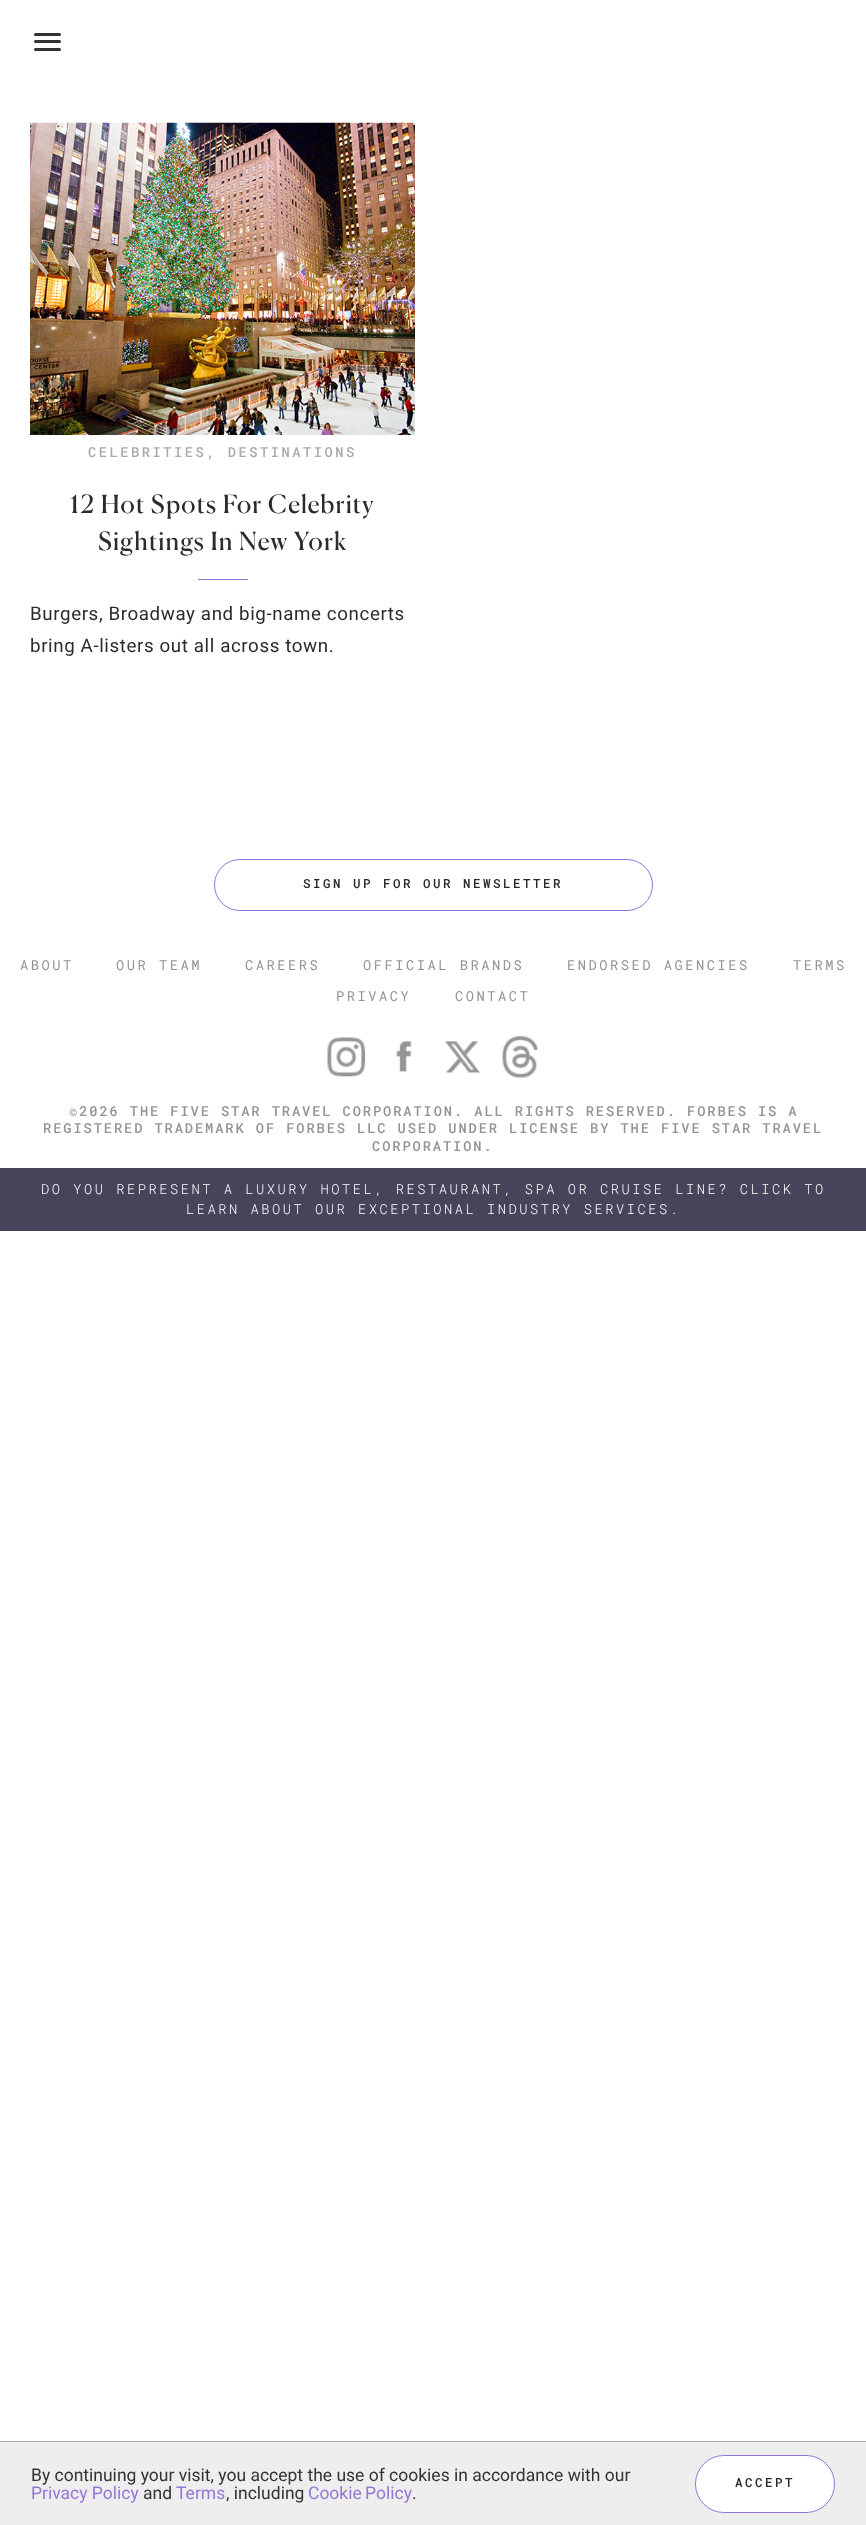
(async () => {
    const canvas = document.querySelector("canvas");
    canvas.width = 866;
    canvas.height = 2525;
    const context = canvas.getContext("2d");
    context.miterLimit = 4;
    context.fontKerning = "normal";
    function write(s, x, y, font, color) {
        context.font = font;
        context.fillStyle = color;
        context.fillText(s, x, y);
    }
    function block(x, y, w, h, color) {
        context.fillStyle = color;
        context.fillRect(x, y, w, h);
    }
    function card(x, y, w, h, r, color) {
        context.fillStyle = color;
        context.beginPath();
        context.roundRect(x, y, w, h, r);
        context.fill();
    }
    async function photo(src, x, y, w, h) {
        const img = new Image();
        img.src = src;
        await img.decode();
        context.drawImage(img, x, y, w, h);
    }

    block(0, 0, 866, 2525, "rgb(255, 255, 255)");
    card(34, 33, 27, 3, 1.5, "rgb(51, 51, 51)");
    card(34, 40, 27, 3, 1.5, "rgb(51, 51, 51)");
    card(34, 48, 27, 3, 1.5, "rgb(51, 51, 51)");
    await photo("media/1.png", 30, 122, 385, 313);
    context.letterSpacing = "2.5px";
    write("CELEBRITIES, DESTINATIONS", 88, 457, "500 13.75px Roboto Mono", "rgb(169, 170, 171)");
    context.letterSpacing = "1.25px";
    write("12 Hot Spots For Celebrity", 70, 513, "25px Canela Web", "rgb(48, 43, 43)");
    write("Sightings In New York", 98, 550, "25px Canela Web", "rgb(48, 43, 43)");
    block(198, 579, 50, 1, "rgb(148, 118, 215)");
    context.letterSpacing = "0.6px";
    write("Burgers, Broadway and big-name concerts", 30, 620, "18.75px Roboto", "rgb(48, 43, 43)");
    write("bring A-listers out all across town.", 30, 652, "18.75px Roboto", "rgb(48, 43, 43)");
    context.beginPath();
    context.roundRect(214.5, 859.5, 438, 51, 25.5);
    context.strokeStyle = "rgb(148, 118, 215)";
    context.stroke();
    context.letterSpacing = "2.5px";
    write("SIGN UP FOR OUR NEWSLETTER", 303, 888, "500 12.5px Roboto Mono", "rgb(41, 41, 44)");
    write("ABOUT", 20, 970, "13.75px Roboto Mono", "rgb(148, 148, 150)");
    write("OUR TEAM", 116, 970, "13.75px Roboto Mono", "rgb(148, 148, 150)");
    write("CAREERS", 245, 970, "13.75px Roboto Mono", "rgb(148, 148, 150)");
    write("OFFICIAL BRANDS", 363, 970, "13.75px Roboto Mono", "rgb(148, 148, 150)");
    write("ENDORSED AGENCIES", 567, 970, "13.75px Roboto Mono", "rgb(148, 148, 150)");
    write("TERMS", 793, 970, "13.75px Roboto Mono", "rgb(148, 148, 150)");
    write("PRIVACY", 336, 1001, "13.75px Roboto Mono", "rgb(148, 148, 150)");
    write("CONTACT", 455, 1001, "13.75px Roboto Mono", "rgb(148, 148, 150)");
    await photo("media/2.png", 327, 1037, 39, 40);
    await photo("media/3.png", 396, 1041, 16, 31);
    await photo("media/4.png", 445, 1041, 35, 32);
    await photo("media/5.png", 502, 1036, 36, 42);
    context.letterSpacing = "1.88px";
    write("©2026 THE FIVE STAR TRAVEL CORPORATION. ALL RIGHTS RESERVED. FORBES IS A", 69, 1116, "500 13.75px Roboto Mono", "rgb(148, 148, 150)");
    write("REGISTERED TRADEMARK OF FORBES LLC USED UNDER LICENSE BY THE FIVE STAR TRAVEL", 43, 1133, "500 13.75px Roboto Mono", "rgb(148, 148, 150)");
    write("CORPORATION.", 372, 1151, "500 13.75px Roboto Mono", "rgb(148, 148, 150)");
    block(0, 1168, 866, 63, "rgb(73, 66, 91)");
    context.letterSpacing = "2.5px";
    write("DO YOU REPRESENT A LUXURY HOTEL, RESTAURANT, SPA OR CRUISE LINE? CLICK TO", 41, 1194, "300 13.75px Roboto Mono", "rgb(255, 255, 255)");
    write("LEARN ABOUT OUR EXCEPTIONAL INDUSTRY SERVICES.", 186, 1214, "300 13.75px Roboto Mono", "rgb(255, 255, 255)");
    block(0, 2442, 866, 83, "rgb(238, 238, 238)");
    block(0, 2441, 866, 1, "rgb(170, 170, 170)");
    context.letterSpacing = "0px";
    write("By continuing your visit, you accept the use of cookies in accordance with our", 31, 2481, "17.5px Roboto", "rgb(51, 51, 51)");
    write("Privacy Policy", 31, 2499, "17.5px Roboto", "rgb(148, 118, 215)");
    write("and", 143, 2499, "17.5px Roboto", "rgb(51, 51, 51)");
    write("Terms", 176, 2499, "17.5px Roboto", "rgb(148, 118, 215)");
    write(", including", 226, 2499, "17.5px Roboto", "rgb(51, 51, 51)");
    context.wordSpacing = "-1px";
    write("Cookie Policy", 308, 2499, "17.5px Roboto", "rgb(148, 118, 215)");
    context.wordSpacing = "0px";
    write(".", 412, 2499, "17.5px Roboto", "rgb(51, 51, 51)");
    context.fillStyle = "rgb(255, 255, 255)";
    context.beginPath();
    context.roundRect(695.5, 2455.5, 139, 57, 28.5);
    context.fill();
    context.stroke();
    context.letterSpacing = "2.5px";
    write("ACCEPT", 735, 2487, "500 12.5px Roboto Mono", "rgb(41, 41, 44)");
})();
